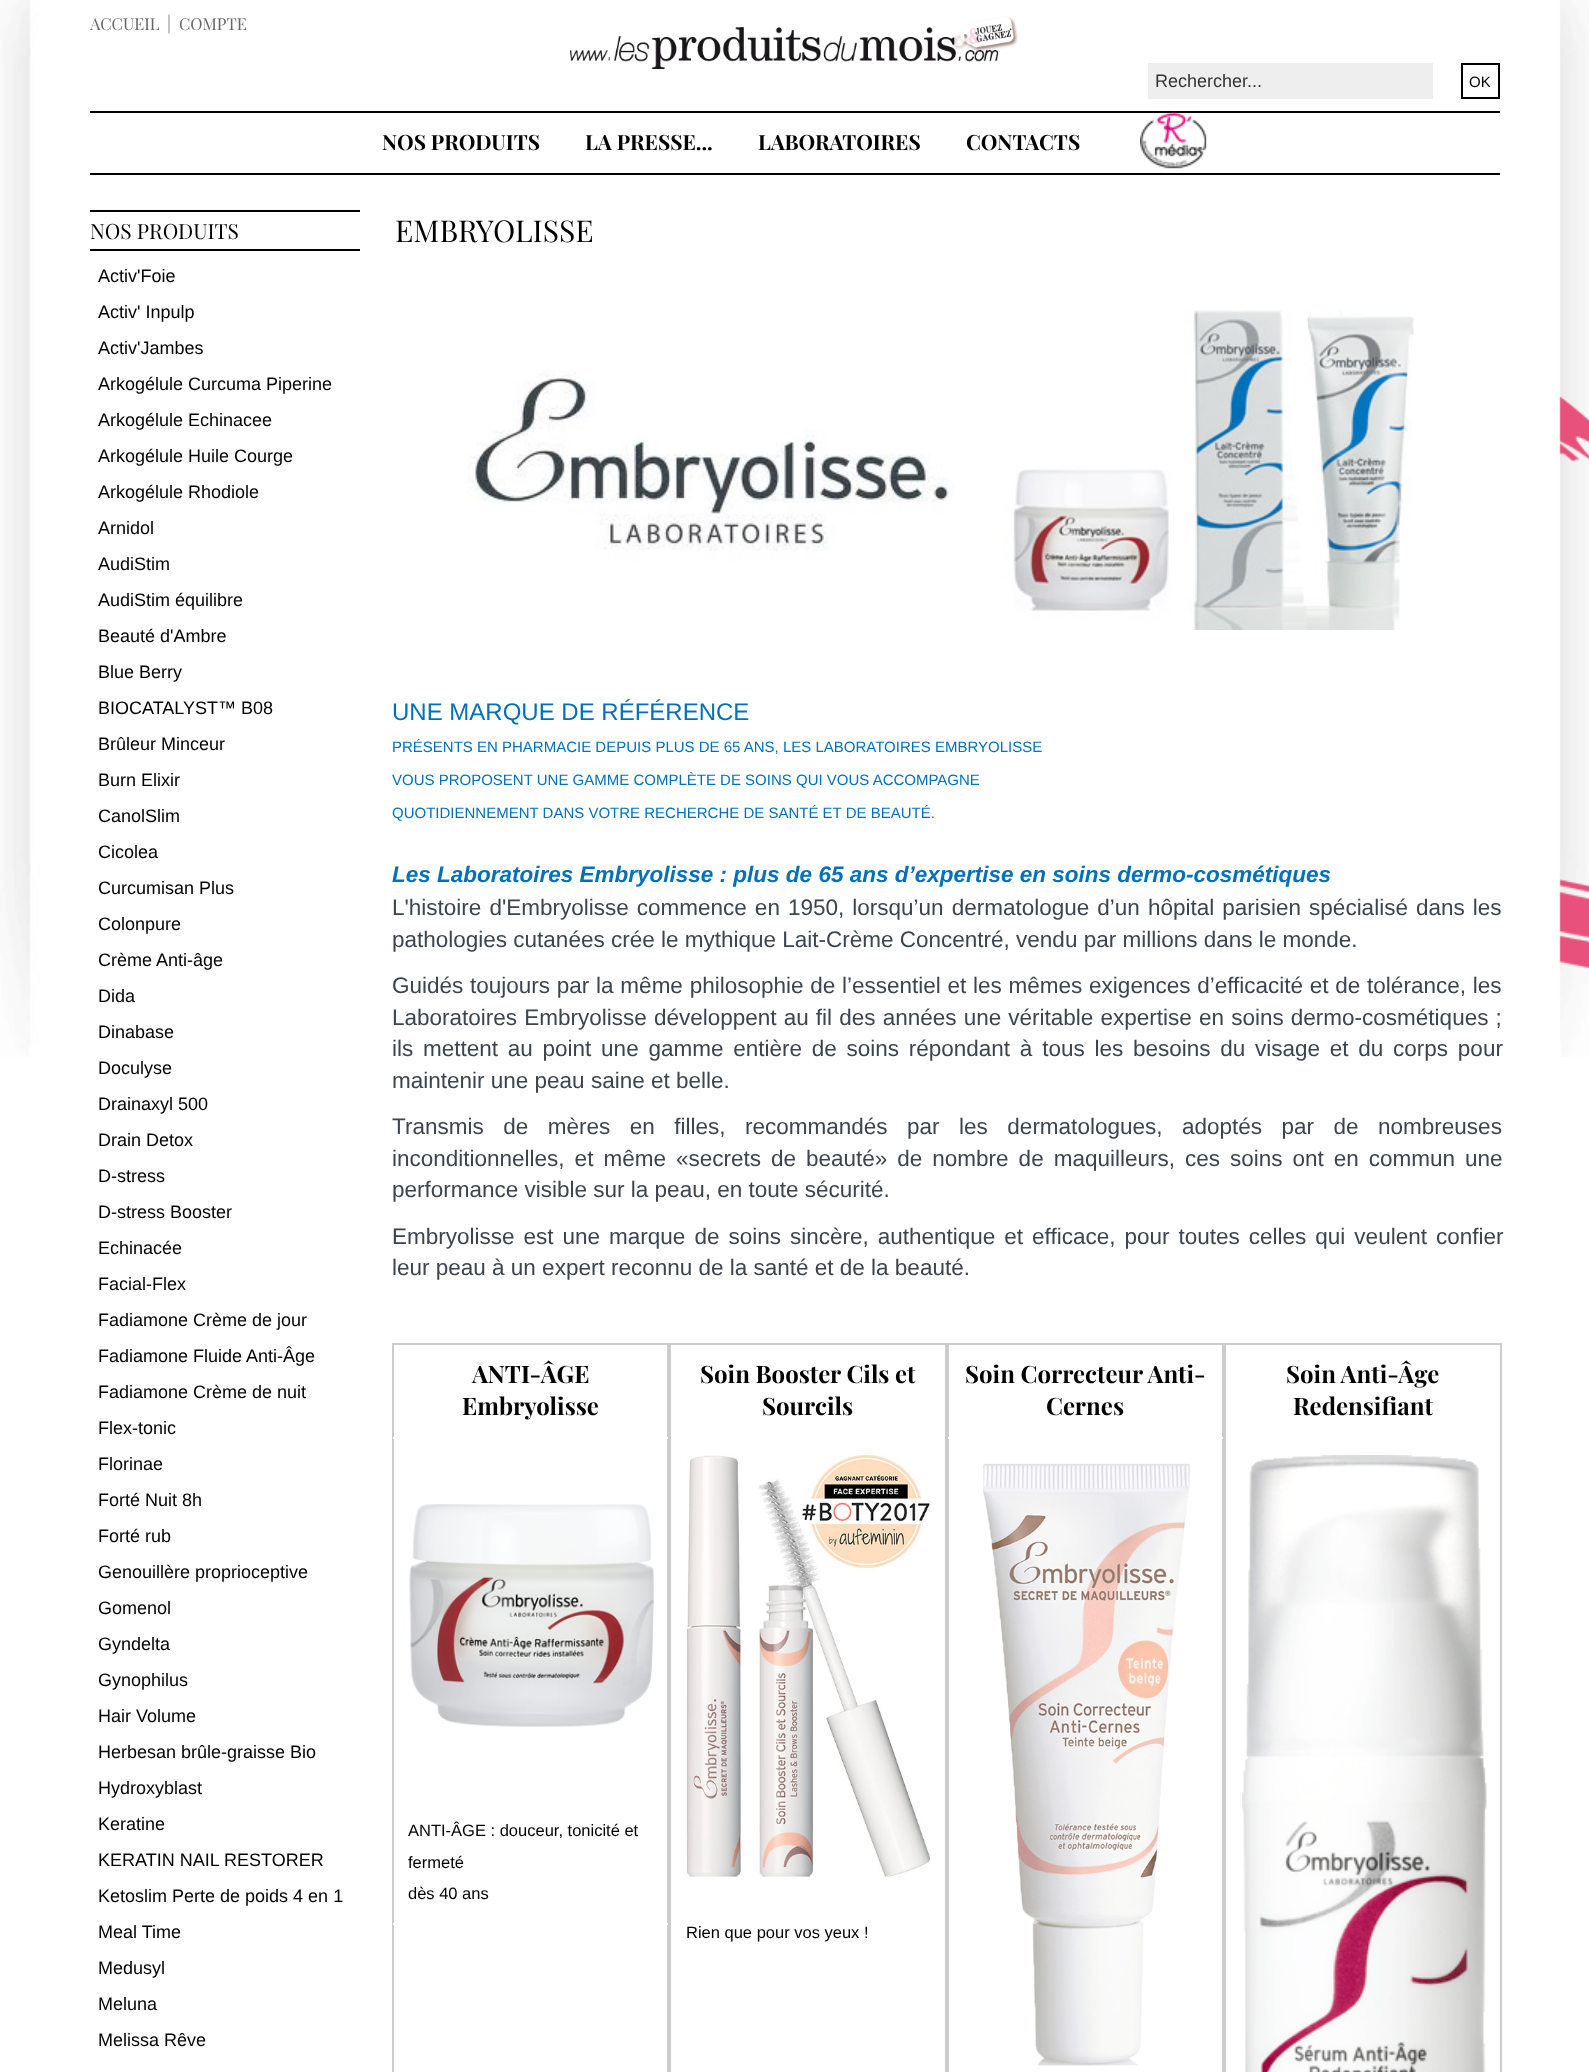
(async () => {
    const canvas = document.querySelector("canvas");
    canvas.width = 1589;
    canvas.height = 2072;
    const context = canvas.getContext("2d");
    context.miterLimit = 4;
    context.fontKerning = "normal";
    function write(s, x, y, font, color) {
        context.font = font;
        context.fillStyle = color;
        context.fillText(s, x, y);
    }
    function block(x, y, w, h, color) {
        context.fillStyle = color;
        context.fillRect(x, y, w, h);
    }
    async function photo(src, x, y, w, h) {
        const img = new Image();
        img.src = src;
        await img.decode();
        context.drawImage(img, x, y, w, h);
    }

    block(0, 0, 1589, 2072, "rgb(255, 255, 255)");
    await photo("media/1.png", 0, 0, 1589, 1057);
    write("ACCUEIL", 90, 30, "16.5px Playfair Display", "rgb(102, 102, 102)");
    write("|", 167, 30, "18px Playfair Display", "rgb(102, 102, 102)");
    write("COMPTE", 179, 30, "16.5px Playfair Display", "rgb(102, 102, 102)");
    await photo("media/2.png", 570, 16, 449, 53);
    block(1148, 63, 285, 36, "rgb(238, 238, 238)");
    write("Rechercher...", 1155, 87, "18px Liberation Sans", "rgb(51, 51, 51)");
    context.strokeStyle = "rgb(0, 0, 0)";
    context.lineWidth = 2;
    context.strokeRect(1462, 64, 37, 34);
    write("OK", 1469, 87, "15px Liberation Sans", "rgb(0, 0, 0)");
    block(90, 111, 1410, 2, "rgb(0, 0, 0)");
    block(90, 173, 1410, 2, "rgb(0, 0, 0)");
    write("NOS PRODUITS", 382, 150, "bold 21px Playfair Display", "rgb(0, 0, 0)");
    write("LA PRESSE...", 585, 150, "bold 21px Playfair Display", "rgb(0, 0, 0)");
    write("LABORATOIRES", 758, 150, "bold 21px Playfair Display", "rgb(0, 0, 0)");
    write("CONTACTS", 966, 150, "bold 21px Playfair Display", "rgb(0, 0, 0)");
    await photo("media/3.png", 1140, 112, 67, 57);
    block(90, 210, 270, 2, "rgb(0, 0, 0)");
    block(90, 249, 270, 2, "rgb(0, 0, 0)");
    write("NOS PRODUITS", 90, 239, "21px Playfair Display", "rgb(0, 0, 0)");
    write("Activ'Foie", 98, 282, "18px Liberation Sans", "rgb(0, 0, 0)");
    write("Activ' Inpulp", 98, 318, "18px Liberation Sans", "rgb(0, 0, 0)");
    write("Activ'Jambes", 98, 354, "18px Liberation Sans", "rgb(0, 0, 0)");
    write("Arkogélule Curcuma Piperine", 98, 390, "18px Liberation Sans", "rgb(0, 0, 0)");
    write("Arkogélule Echinacee", 98, 426, "18px Liberation Sans", "rgb(0, 0, 0)");
    write("Arkogélule Huile Courge", 98, 462, "18px Liberation Sans", "rgb(0, 0, 0)");
    write("Arkogélule Rhodiole", 98, 498, "18px Liberation Sans", "rgb(0, 0, 0)");
    write("Arnidol", 98, 534, "18px Liberation Sans", "rgb(0, 0, 0)");
    write("AudiStim", 98, 570, "18px Liberation Sans", "rgb(0, 0, 0)");
    write("AudiStim équilibre", 98, 606, "18px Liberation Sans", "rgb(0, 0, 0)");
    write("Beauté d'Ambre", 98, 642, "18px Liberation Sans", "rgb(0, 0, 0)");
    write("Blue Berry", 98, 678, "18px Liberation Sans", "rgb(0, 0, 0)");
    write("BIOCATALYST™ B08", 98, 714, "18px Liberation Sans", "rgb(0, 0, 0)");
    write("Brûleur Minceur", 98, 750, "18px Liberation Sans", "rgb(0, 0, 0)");
    write("Burn Elixir", 98, 786, "18px Liberation Sans", "rgb(0, 0, 0)");
    write("CanolSlim", 98, 822, "18px Liberation Sans", "rgb(0, 0, 0)");
    write("Cicolea", 98, 858, "18px Liberation Sans", "rgb(0, 0, 0)");
    write("Curcumisan Plus", 98, 894, "18px Liberation Sans", "rgb(0, 0, 0)");
    write("Colonpure", 98, 930, "18px Liberation Sans", "rgb(0, 0, 0)");
    write("Crème Anti-âge", 98, 966, "18px Liberation Sans", "rgb(0, 0, 0)");
    write("Dida", 98, 1002, "18px Liberation Sans", "rgb(0, 0, 0)");
    write("Dinabase", 98, 1038, "18px Liberation Sans", "rgb(0, 0, 0)");
    write("Doculyse", 98, 1074, "18px Liberation Sans", "rgb(0, 0, 0)");
    write("Drainaxyl 500", 98, 1110, "18px Liberation Sans", "rgb(0, 0, 0)");
    write("Drain Detox", 98, 1146, "18px Liberation Sans", "rgb(0, 0, 0)");
    write("D-stress", 98, 1182, "18px Liberation Sans", "rgb(0, 0, 0)");
    write("D-stress Booster", 98, 1218, "18px Liberation Sans", "rgb(0, 0, 0)");
    write("Echinacée", 98, 1254, "18px Liberation Sans", "rgb(0, 0, 0)");
    write("Facial-Flex", 98, 1290, "18px Liberation Sans", "rgb(0, 0, 0)");
    write("Fadiamone Crème de jour", 98, 1326, "18px Liberation Sans", "rgb(0, 0, 0)");
    write("Fadiamone Fluide Anti-Âge", 98, 1362, "18px Liberation Sans", "rgb(0, 0, 0)");
    write("Fadiamone Crème de nuit", 98, 1398, "18px Liberation Sans", "rgb(0, 0, 0)");
    write("Flex-tonic", 98, 1434, "18px Liberation Sans", "rgb(0, 0, 0)");
    write("Florinae", 98, 1470, "18px Liberation Sans", "rgb(0, 0, 0)");
    write("Forté Nuit 8h", 98, 1506, "18px Liberation Sans", "rgb(0, 0, 0)");
    write("Forté rub", 98, 1542, "18px Liberation Sans", "rgb(0, 0, 0)");
    write("Genouillère proprioceptive", 98, 1578, "18px Liberation Sans", "rgb(0, 0, 0)");
    write("Gomenol", 98, 1614, "18px Liberation Sans", "rgb(0, 0, 0)");
    write("Gyndelta", 98, 1650, "18px Liberation Sans", "rgb(0, 0, 0)");
    write("Gynophilus", 98, 1686, "18px Liberation Sans", "rgb(0, 0, 0)");
    write("Hair Volume", 98, 1722, "18px Liberation Sans", "rgb(0, 0, 0)");
    write("Herbesan brûle-graisse Bio", 98, 1758, "18px Liberation Sans", "rgb(0, 0, 0)");
    write("Hydroxyblast", 98, 1794, "18px Liberation Sans", "rgb(0, 0, 0)");
    write("Keratine", 98, 1830, "18px Liberation Sans", "rgb(0, 0, 0)");
    write("KERATIN NAIL RESTORER", 98, 1866, "18px Liberation Sans", "rgb(0, 0, 0)");
    write("Ketoslim Perte de poids 4 en 1", 98, 1902, "18px Liberation Sans", "rgb(0, 0, 0)");
    write("Meal Time", 98, 1938, "18px Liberation Sans", "rgb(0, 0, 0)");
    write("Medusyl", 98, 1974, "18px Liberation Sans", "rgb(0, 0, 0)");
    write("Meluna", 98, 2010, "18px Liberation Sans", "rgb(0, 0, 0)");
    write("Melissa Rêve", 98, 2046, "18px Liberation Sans", "rgb(0, 0, 0)");
    write("EMBRYOLISSE", 395, 242, "30px Playfair Display", "rgb(0, 0, 0)");
    await photo("media/4.png", 467, 310, 947, 320);
    write("UNE MARQUE DE RÉFÉRENCE", 392, 720, "24px Liberation Sans", "rgb(0, 113, 185)");
    write("PRÉSENTS EN PHARMACIE DEPUIS PLUS DE 65 ANS, LES LABORATOIRES EMBRYOLISSE", 392, 752, "15px Liberation Sans", "rgb(0, 113, 185)");
    write("VOUS PROPOSENT UNE GAMME COMPLÈTE DE SOINS QUI VOUS ACCOMPAGNE", 392, 785, "15px Liberation Sans", "rgb(0, 113, 185)");
    write("QUOTIDIENNEMENT DANS VOTRE RECHERCHE DE SANTÉ ET DE BEAUTÉ.", 392, 818, "15px Liberation Sans", "rgb(0, 113, 185)");
    write("Les Laboratoires Embryolisse : plus de 65 ans d’expertise en soins dermo-cosmétiques", 392, 882, "italic bold 22.5px Liberation Sans", "rgb(0, 113, 185)");
    context.wordSpacing = "1.8px";
    write("L'histoire d'Embryolisse commence en 1950, lorsqu’un dermatologue d’un hôpital parisien spécialisé dans les", 392, 915, "22.5px Liberation Sans", "rgb(60, 68, 78)");
    context.wordSpacing = "0px";
    write("pathologies cutanées crée le mythique Lait-Crème Concentré, vendu par millions dans le monde.", 392, 947, "22.5px Liberation Sans", "rgb(60, 68, 78)");
    context.wordSpacing = "0.5px";
    write("Guidés toujours par la même philosophie de l’essentiel et les mêmes exigences d’efficacité et de tolérance, les", 392, 993, "22.5px Liberation Sans", "rgb(60, 68, 78)");
    context.wordSpacing = "0.9px";
    write("Laboratoires Embryolisse développent au fil des années une véritable expertise en soins dermo-cosmétiques ;", 392, 1025, "22.5px Liberation Sans", "rgb(60, 68, 78)");
    context.wordSpacing = "3.5px";
    write("ils mettent au point une gamme entière de soins répondant à tous les besoins du visage et du corps pour", 392, 1056, "22.5px Liberation Sans", "rgb(60, 68, 78)");
    context.wordSpacing = "0px";
    write("maintenir une peau saine et belle.", 392, 1088, "22.5px Liberation Sans", "rgb(60, 68, 78)");
    context.wordSpacing = "13.25px";
    write("Transmis de mères en filles, recommandés par les dermatologues, adoptés par de nombreuses", 392, 1134, "22.5px Liberation Sans", "rgb(60, 68, 78)");
    context.wordSpacing = "3.75px";
    write("inconditionnelles, et même «secrets de beauté» de nombre de maquilleurs, ces soins ont en commun une", 392, 1166, "22.5px Liberation Sans", "rgb(60, 68, 78)");
    context.wordSpacing = "0px";
    write("performance visible sur la peau, en toute sécurité.", 392, 1197, "22.5px Liberation Sans", "rgb(60, 68, 78)");
    context.wordSpacing = "2.75px";
    write("Embryolisse est une marque de soins sincère, authentique et efficace, pour toutes celles qui veulent confier", 392, 1244, "22.5px Liberation Sans", "rgb(60, 68, 78)");
    context.wordSpacing = "0px";
    write("leur peau à un expert reconnu de la santé et de la beauté.", 392, 1275, "22.5px Liberation Sans", "rgb(60, 68, 78)");
    context.strokeStyle = "rgb(204, 204, 204)";
    context.strokeRect(393, 1344, 275, 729);
    write("ANTI-ÂGE", 472, 1383, "bold 24px Playfair Display", "rgb(0, 0, 0)");
    write("Embryolisse", 462, 1415, "bold 24px Playfair Display", "rgb(0, 0, 0)");
    block(393, 1437, 275, 2, "rgb(255, 255, 255)");
    await photo("media/5.png", 409, 1504, 245, 223);
    block(393, 1923, 275, 2, "rgb(255, 255, 255)");
    write("ANTI-ÂGE : douceur, tonicité et", 408, 1836, "16.5px Liberation Sans", "rgb(0, 0, 0)");
    write("fermeté", 408, 1868, "16.5px Liberation Sans", "rgb(0, 0, 0)");
    write("dès 40 ans", 408, 1899, "16.5px Liberation Sans", "rgb(0, 0, 0)");
    context.strokeRect(670, 1344, 276, 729);
    write("Soin Booster Cils et", 700, 1383, "bold 24px Playfair Display", "rgb(0, 0, 0)");
    write("Sourcils", 762, 1415, "bold 24px Playfair Display", "rgb(0, 0, 0)");
    await photo("media/6.png", 687, 1455, 245, 422);
    write("Rien que pour vos yeux !", 686, 1938, "16.5px Liberation Sans", "rgb(0, 0, 0)");
    context.strokeRect(948, 1344, 275, 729);
    write("Soin Correcteur Anti-", 965, 1383, "bold 24px Playfair Display", "rgb(0, 0, 0)");
    write("Cernes", 1046, 1415, "bold 24px Playfair Display", "rgb(0, 0, 0)");
    block(948, 1437, 275, 2, "rgb(255, 255, 255)");
    await photo("media/7.png", 983, 1463, 207, 603);
    context.strokeRect(1225, 1344, 276, 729);
    write("Soin Anti-Âge", 1286, 1383, "bold 24px Playfair Display", "rgb(0, 0, 0)");
    write("Redensifiant", 1293, 1415, "bold 24px Playfair Display", "rgb(0, 0, 0)");
    await photo("media/8.png", 1242, 1455, 245, 617);
})();
